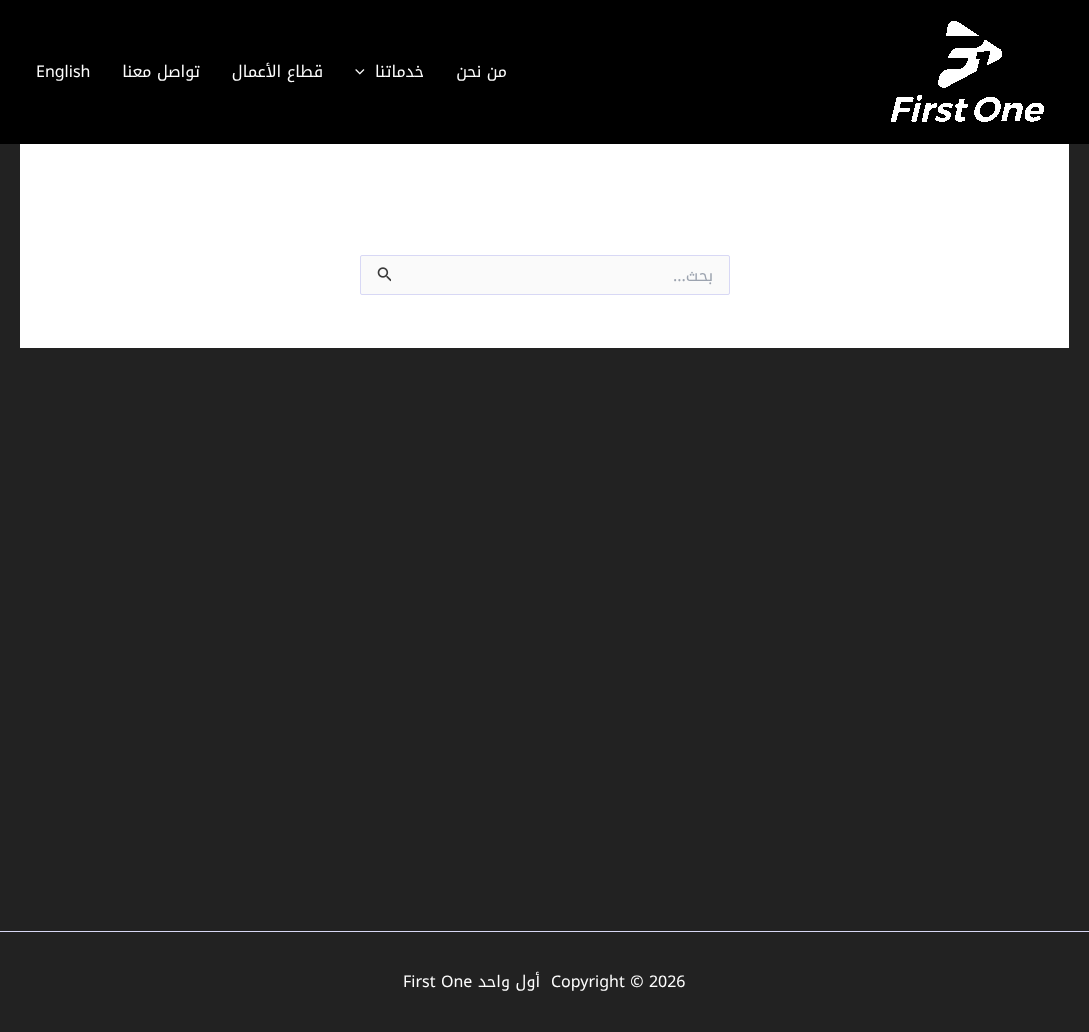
(async () => {
    const canvas = document.querySelector("canvas");
    canvas.width = 1089;
    canvas.height = 1032;
    const context = canvas.getContext("2d");
    context.miterLimit = 4;
    context.fontKerning = "normal";
    function write(s, x, y, font, color) {
        context.font = font;
        context.fillStyle = color;
        context.fillText(s, x, y);
    }
    function block(x, y, w, h, color) {
        context.fillStyle = color;
        context.fillRect(x, y, w, h);
    }
    async function photo(src, x, y, w, h) {
        const img = new Image();
        img.src = src;
        await img.decode();
        context.drawImage(img, x, y, w, h);
    }

    block(0, 0, 1089, 1032, "rgb(34, 34, 34)");
    block(0, 0, 1089, 144, "rgb(0, 0, 0)");
    await photo("media/1.png", 891, 21, 153, 101);
    context.direction = "rtl";
    write("من نحن", 507, 77, "16px Noto Kufi Arabic", "rgb(254, 254, 254)");
    write("خدماتنا", 424, 77, "16px Noto Kufi Arabic", "rgb(254, 254, 254)");
    await photo("media/2.png", 355, 69, 10, 6);
    write("قطاع الأعمال", 323, 77, "16px Noto Kufi Arabic", "rgb(254, 254, 254)");
    write("تواصل معنا", 200, 77, "16px Noto Kufi Arabic", "rgb(254, 254, 254)");
    context.direction = "ltr";
    write("English", 36, 77, "16px Noto Kufi Arabic", "rgb(254, 254, 254)");
    block(20, 144, 1049, 204, "rgb(255, 255, 255)");
    context.fillStyle = "rgb(250, 250, 250)";
    context.beginPath();
    context.roundRect(360.5, 255.5, 369, 39, 1.5);
    context.fill();
    context.strokeStyle = "rgb(216, 216, 245)";
    context.stroke();
    context.direction = "rtl";
    write("بحث...", 713, 281, "16px Noto Kufi Arabic", "rgb(156, 163, 175)");
    await photo("media/3.png", 377, 267, 14, 15);
    block(0, 931, 1089, 1, "rgb(216, 216, 245)");
    context.direction = "ltr";
    write("Copyright © 2026", 551, 987, "16px Noto Kufi Arabic", "rgb(254, 254, 254)");
    context.direction = "rtl";
    write("أول واحد", 540, 987, "16px Noto Kufi Arabic", "rgb(254, 254, 254)");
    context.direction = "ltr";
    write("First One", 403, 987, "16px Noto Kufi Arabic", "rgb(254, 254, 254)");
})();
